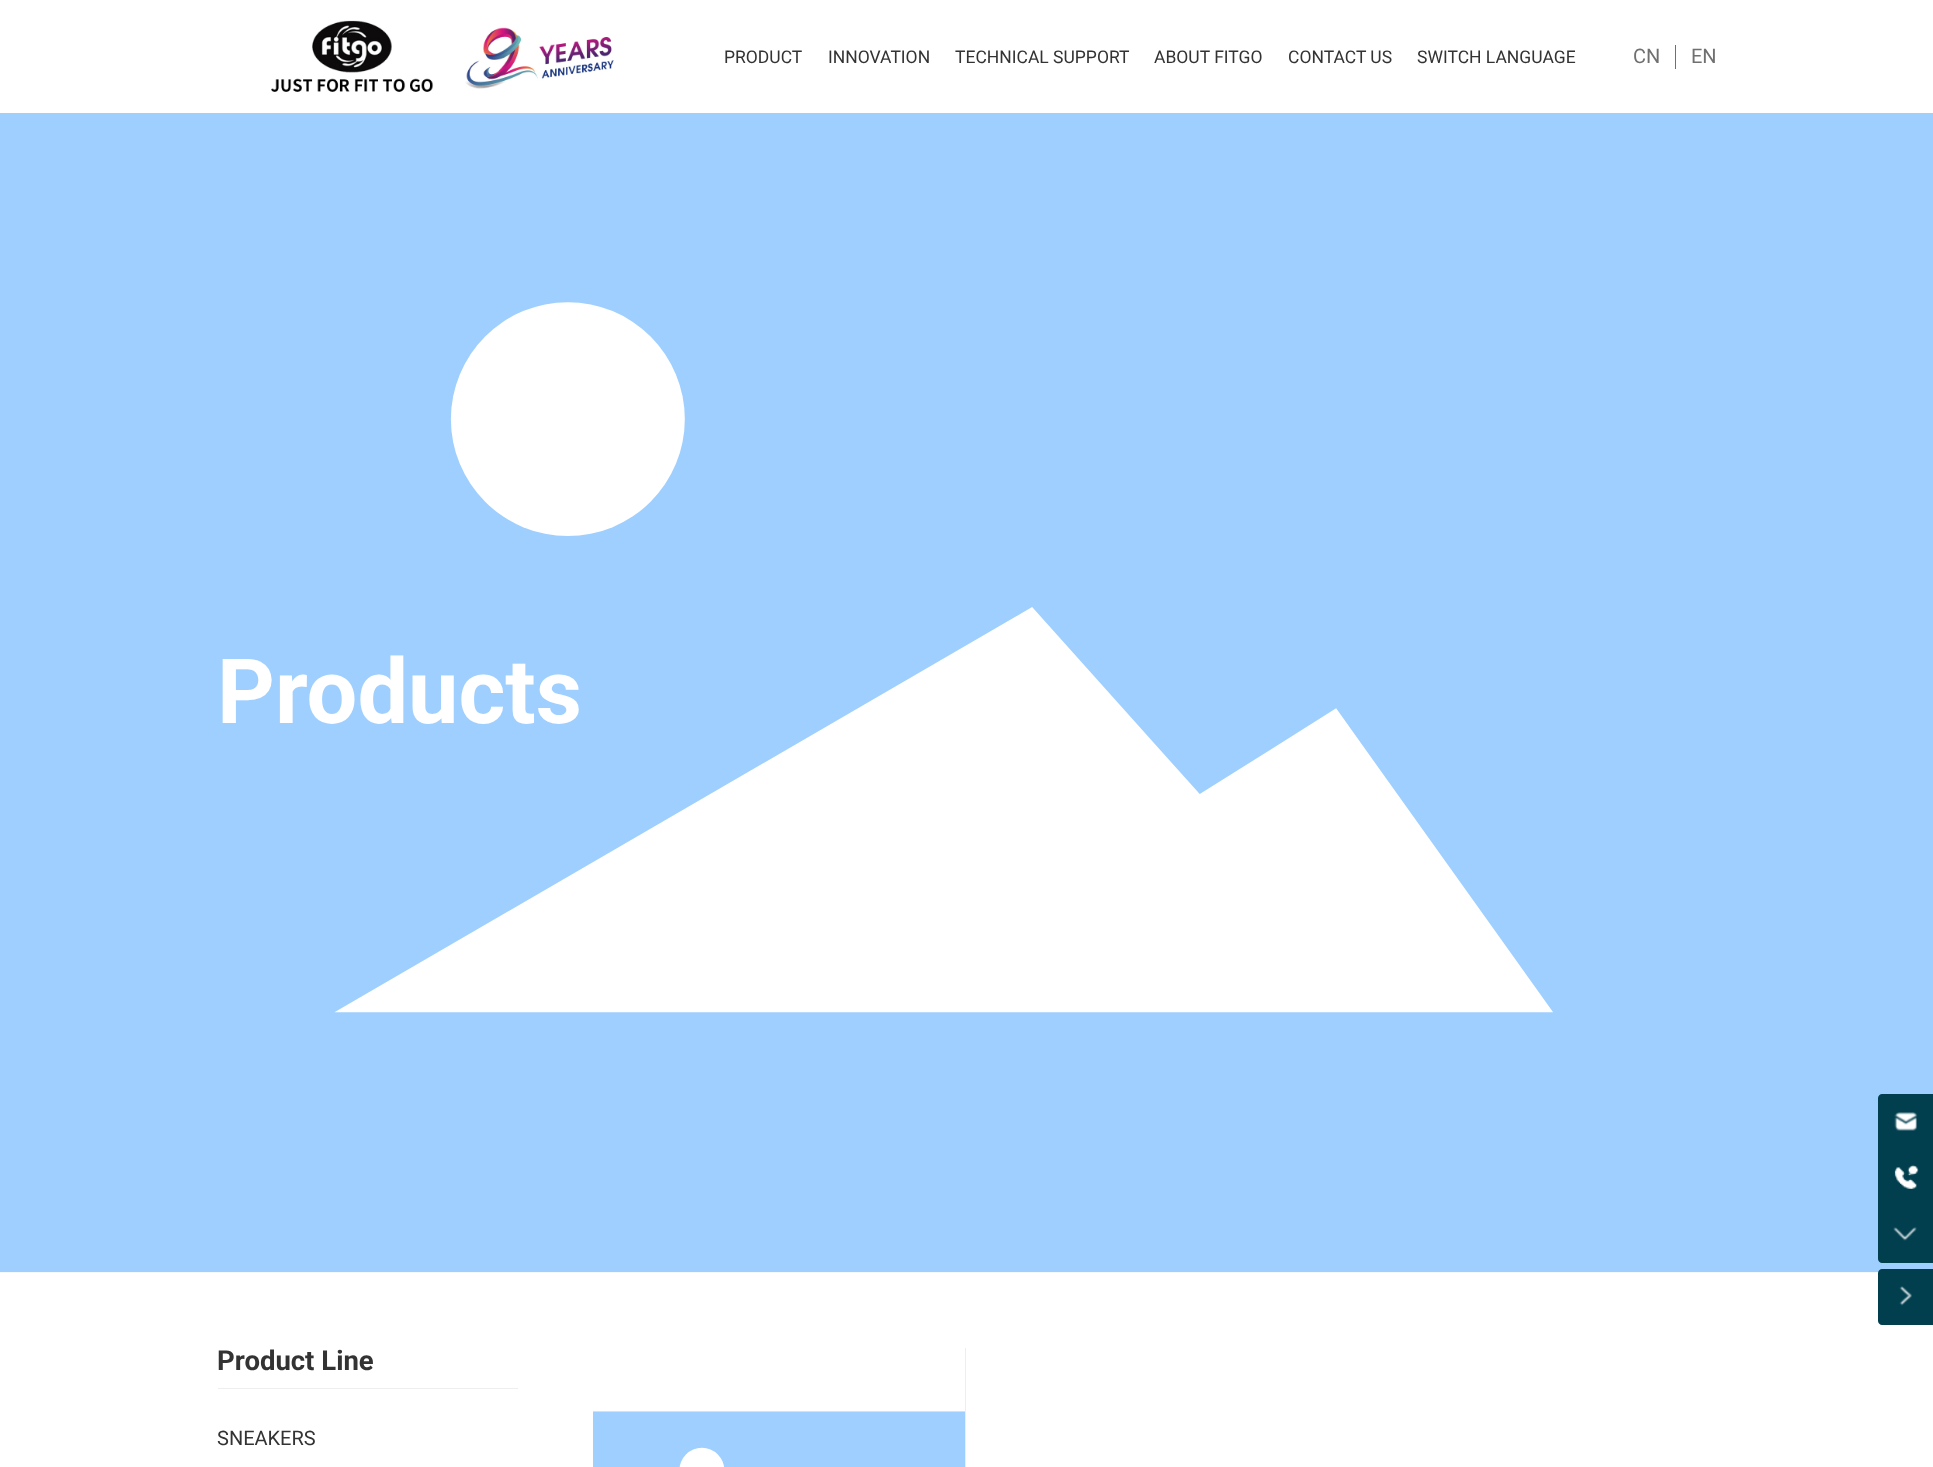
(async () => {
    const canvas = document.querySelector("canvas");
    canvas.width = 1933;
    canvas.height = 1467;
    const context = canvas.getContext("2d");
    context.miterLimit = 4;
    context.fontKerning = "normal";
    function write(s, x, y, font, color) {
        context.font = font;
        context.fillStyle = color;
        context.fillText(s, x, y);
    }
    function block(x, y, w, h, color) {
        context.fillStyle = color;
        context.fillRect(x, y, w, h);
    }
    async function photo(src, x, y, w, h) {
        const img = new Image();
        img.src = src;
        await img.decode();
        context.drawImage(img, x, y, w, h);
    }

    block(0, 0, 1933, 1467, "rgb(255, 255, 255)");
    await photo("media/1.png", 271, 20, 343, 72);
    write("PRODUCT", 724, 63, "17.5px Roboto", "rgb(51, 51, 51)");
    write("INNOVATION", 828, 63, "17.5px Roboto", "rgb(51, 51, 51)");
    write("TECHNICAL SUPPORT", 955, 63, "17.5px Roboto", "rgb(51, 51, 51)");
    write("ABOUT FITGO", 1154, 63, "17.5px Roboto", "rgb(51, 51, 51)");
    write("CONTACT US", 1288, 63, "17.5px Roboto", "rgb(51, 51, 51)");
    write("SWITCH LANGUAGE", 1417, 63, "17.5px Roboto", "rgb(51, 51, 51)");
    block(1675, 45, 1, 24, "rgb(112, 112, 112)");
    write("CN", 1633, 63, "20px Roboto", "rgb(112, 112, 112)");
    write("EN", 1691, 63, "20px Roboto", "rgb(112, 112, 112)");
    await photo("media/2.png", 0, 113, 1933, 1160);
    write("Products", 217, 723, "bold 90px Roboto", "rgb(255, 255, 255)");
    context.fillStyle = "rgb(1, 62, 78)";
    context.beginPath();
    context.moveTo(1882, 1094);
    context.lineTo(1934, 1094);
    context.lineTo(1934, 1263);
    context.lineTo(1882, 1263);
    context.bezierCurveTo(1880, 1263, 1878, 1261, 1878, 1259);
    context.lineTo(1878, 1098);
    context.bezierCurveTo(1878, 1096, 1880, 1094, 1882, 1094);
    context.closePath();
    context.fill();
    await photo("media/3.png", 1894, 1112, 24, 19);
    await photo("media/4.png", 1894, 1165, 25, 24);
    await photo("media/5.png", 1893, 1227, 24, 14);
    context.beginPath();
    context.moveTo(1882, 1269);
    context.lineTo(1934, 1269);
    context.lineTo(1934, 1325);
    context.lineTo(1882, 1325);
    context.bezierCurveTo(1880, 1325, 1878, 1323, 1878, 1321);
    context.lineTo(1878, 1273);
    context.bezierCurveTo(1878, 1271, 1880, 1269, 1882, 1269);
    context.closePath();
    context.fill();
    await photo("media/6.png", 1899, 1286, 13, 20);
    block(218, 1388, 300, 1, "rgb(238, 238, 238)");
    write("Product Line", 217, 1370, "bold 27.5px Roboto", "rgb(51, 51, 51)");
    write("SNEAKERS", 217, 1445, "20px Roboto", "rgb(51, 51, 51)");
    block(965, 1348, 1, 119, "rgb(238, 238, 238)");
    await photo("media/7.png", 593, 1411, 372, 56);
})();
